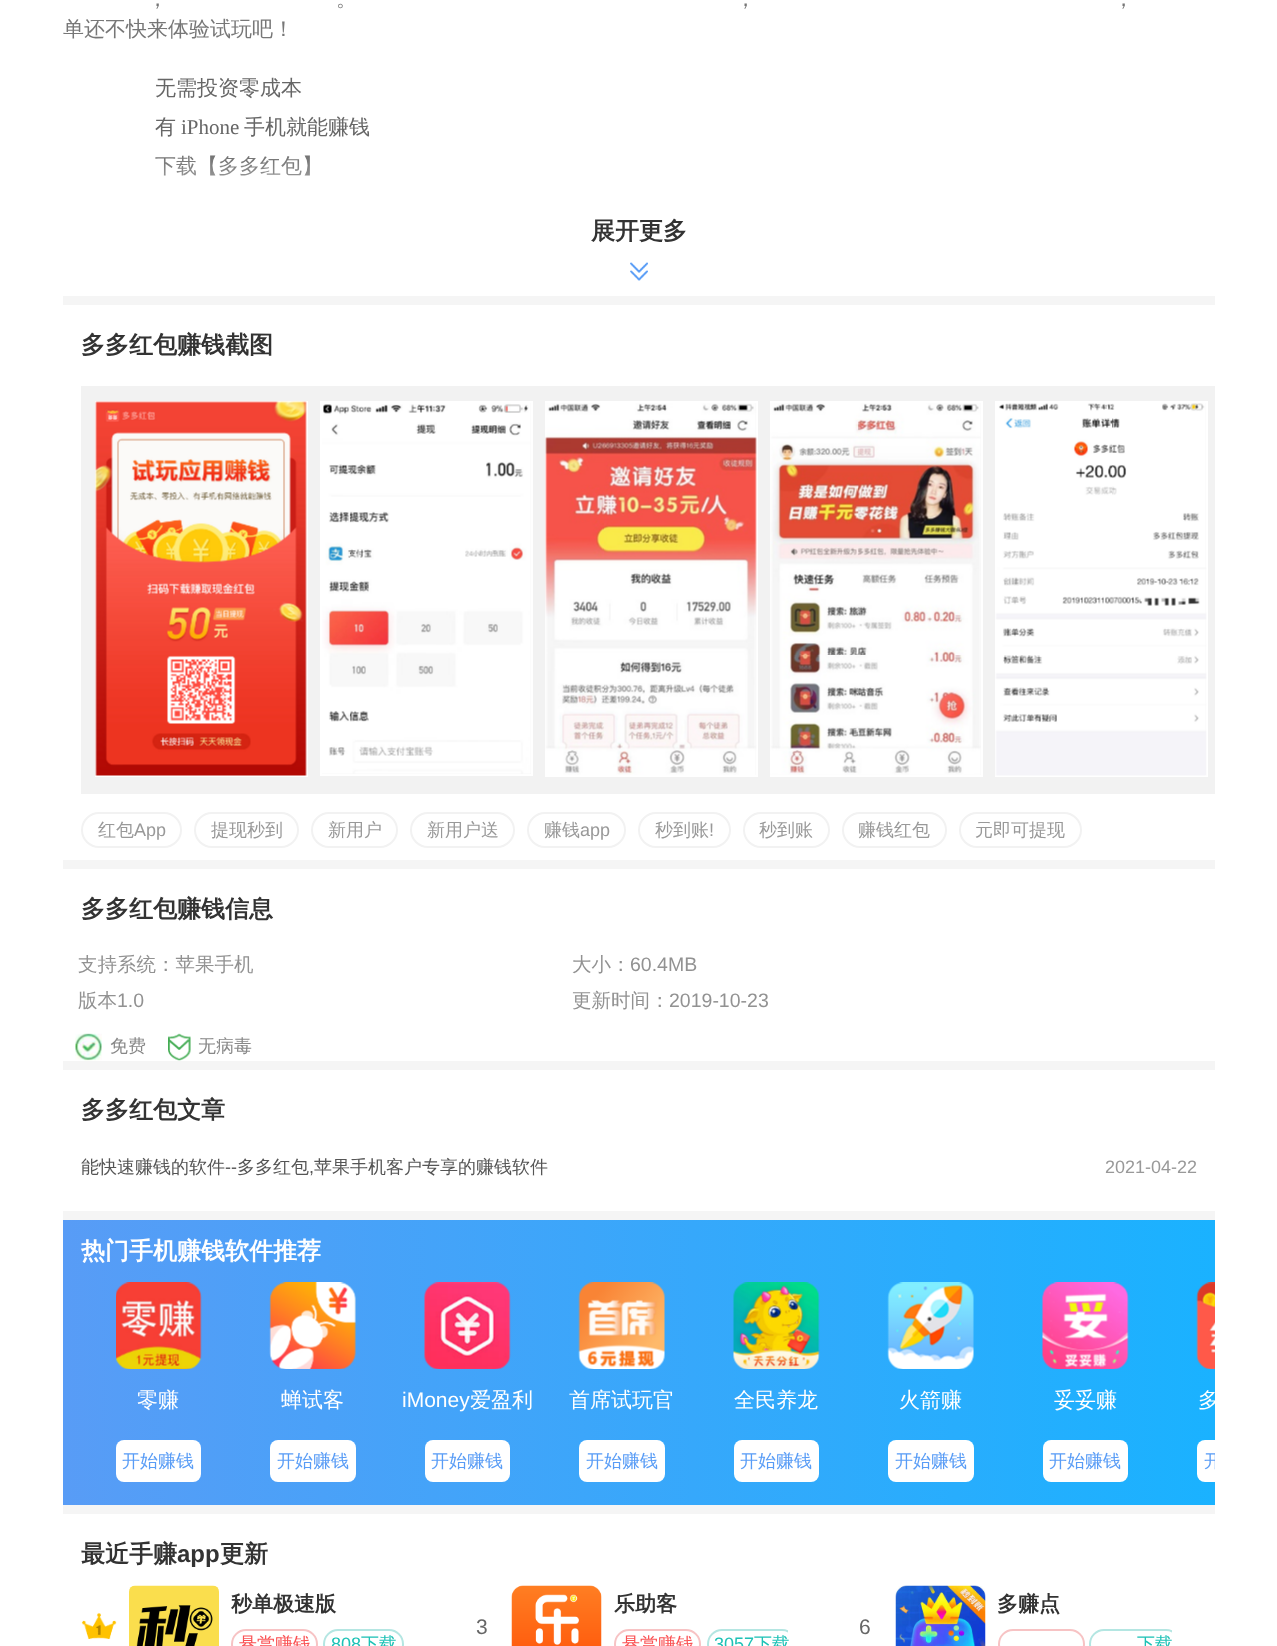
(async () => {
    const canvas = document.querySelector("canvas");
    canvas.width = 1277;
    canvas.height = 1646;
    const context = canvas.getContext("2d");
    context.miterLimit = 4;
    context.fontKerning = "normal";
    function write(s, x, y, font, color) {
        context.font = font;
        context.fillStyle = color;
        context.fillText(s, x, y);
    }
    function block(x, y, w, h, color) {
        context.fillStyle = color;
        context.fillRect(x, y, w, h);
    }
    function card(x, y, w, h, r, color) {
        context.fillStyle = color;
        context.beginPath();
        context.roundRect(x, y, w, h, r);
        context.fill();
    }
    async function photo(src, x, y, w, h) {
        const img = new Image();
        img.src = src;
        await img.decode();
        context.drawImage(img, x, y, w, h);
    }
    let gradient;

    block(0, 0, 1277, 1646, "rgb(255, 255, 255)");
    write("，", 147, 6, "500 21px WenQuanYi Zen Hei", "rgb(119, 119, 119)");
    write("。", 336, 6, "500 21px WenQuanYi Zen Hei", "rgb(119, 119, 119)");
    write("，", 735, 6, "500 21px WenQuanYi Zen Hei", "rgb(119, 119, 119)");
    write("，", 1113, 6, "500 21px WenQuanYi Zen Hei", "rgb(119, 119, 119)");
    write("单还不快来体验试玩吧！", 63, 36, "500 21px WenQuanYi Zen Hei", "rgb(119, 119, 119)");
    write("无需投资零成本", 155, 95, "500 21px WenQuanYi Zen Hei", "rgb(102, 102, 102)");
    write("有", 155, 134, "500 21px WenQuanYi Zen Hei", "rgb(102, 102, 102)");
    write("iPhone", 181, 134, "21px Liberation Serif", "rgb(102, 102, 102)");
    write("手机就能赚钱", 244, 134, "500 21px WenQuanYi Zen Hei", "rgb(102, 102, 102)");
    write("下载【多多红包】", 155, 173, "500 21px WenQuanYi Zen Hei", "rgb(102, 102, 102)");
    block(63, 296, 1152, 9, "rgb(245, 245, 245)");
    context.save();
    context.beginPath();
    context.rect(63, 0, 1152, 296);
    context.clip();
    context.beginPath();
    context.moveTo(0, 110);
    context.lineTo(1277, 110);
    context.lineTo(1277, 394);
    context.lineTo(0, 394);
    context.closePath();
    context.moveTo(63, 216);
    context.lineTo(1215, 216);
    context.lineTo(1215, 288);
    context.lineTo(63, 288);
    context.closePath();
    context.clip("evenodd");
    context.fillStyle = "rgb(255, 255, 255)";
    context.filter = "blur(26px)";
    context.beginPath();
    context.rect(36, 189, 1206, 126);
    context.fill();
    context.filter = "none";
    context.restore();
    write("展开更多", 591, 239, "bold 24px WenQuanYi Zen Hei", "rgb(51, 51, 51)");
    await photo("media/1.png", 630, 262, 18, 19);
    write("多多红包赚钱截图", 81, 353, "bold 24px WenQuanYi Zen Hei", "rgb(51, 51, 51)");
    block(81, 386, 1134, 408, "rgb(242, 242, 242)");
    context.strokeStyle = "rgb(255, 255, 255)";
    context.lineWidth = 2;
    context.strokeRect(96, 402, 211, 374);
    await photo("media/2.png", 95, 401, 212, 375);
    context.strokeRect(321, 402, 211, 373);
    await photo("media/3.png", 322, 403, 209, 371);
    context.strokeRect(546, 402, 211, 374);
    await photo("media/4.png", 545, 403, 212, 372);
    context.strokeRect(771, 402, 211, 374);
    await photo("media/5.png", 770, 403, 211, 372);
    context.strokeRect(996, 402, 211, 374);
    await photo("media/6.png", 995, 403, 212, 373);
    context.beginPath();
    context.roundRect(82, 813, 99, 34, 17);
    context.strokeStyle = "rgb(242, 242, 242)";
    context.stroke();
    write("红包", 98, 836, "500 18px WenQuanYi Zen Hei", "rgb(153, 153, 153)");
    write("App", 134, 836, "18px Liberation Sans", "rgb(153, 153, 153)");
    context.beginPath();
    context.roundRect(195, 813, 103, 34, 17);
    context.stroke();
    write("提现秒到", 211, 836, "500 18px WenQuanYi Zen Hei", "rgb(153, 153, 153)");
    context.beginPath();
    context.roundRect(312, 813, 85, 34, 17);
    context.stroke();
    write("新用户", 328, 836, "500 18px WenQuanYi Zen Hei", "rgb(153, 153, 153)");
    context.beginPath();
    context.roundRect(411, 813, 103, 34, 17);
    context.stroke();
    write("新用户送", 427, 836, "500 18px WenQuanYi Zen Hei", "rgb(153, 153, 153)");
    context.beginPath();
    context.roundRect(528, 813, 97, 34, 17);
    context.stroke();
    write("赚钱", 544, 836, "500 18px WenQuanYi Zen Hei", "rgb(153, 153, 153)");
    write("app", 580, 836, "18px Liberation Sans", "rgb(153, 153, 153)");
    context.beginPath();
    context.roundRect(639, 813, 91, 34, 17);
    context.stroke();
    write("秒到账", 655, 836, "500 18px WenQuanYi Zen Hei", "rgb(153, 153, 153)");
    write("!", 709, 836, "18px Liberation Sans", "rgb(153, 153, 153)");
    context.beginPath();
    context.roundRect(744, 813, 85, 34, 17);
    context.stroke();
    write("秒到账", 759, 836, "500 18px WenQuanYi Zen Hei", "rgb(153, 153, 153)");
    context.beginPath();
    context.roundRect(843, 813, 103, 34, 17);
    context.stroke();
    write("赚钱红包", 858, 836, "500 18px WenQuanYi Zen Hei", "rgb(153, 153, 153)");
    context.beginPath();
    context.roundRect(960, 813, 121, 34, 17);
    context.stroke();
    write("元即可提现", 975, 836, "500 18px WenQuanYi Zen Hei", "rgb(153, 153, 153)");
    block(63, 860, 1152, 9, "rgb(245, 245, 245)");
    write("多多红包赚钱信息", 81, 917, "bold 24px WenQuanYi Zen Hei", "rgb(51, 51, 51)");
    write("支持系统：苹果手机", 78, 971, "500 19.5px WenQuanYi Zen Hei", "rgb(146, 146, 146)");
    write("大小：", 572, 971, "500 19.5px WenQuanYi Zen Hei", "rgb(146, 146, 146)");
    write("60.4MB", 630, 971, "19.5px Liberation Sans", "rgb(146, 146, 146)");
    write("版本", 78, 1007, "500 19.5px WenQuanYi Zen Hei", "rgb(146, 146, 146)");
    write("1.0", 117, 1007, "19.5px Liberation Sans", "rgb(146, 146, 146)");
    write("更新时间：", 572, 1007, "500 19.5px WenQuanYi Zen Hei", "rgb(146, 146, 146)");
    write("2019-10-23", 669, 1007, "19.5px Liberation Sans", "rgb(146, 146, 146)");
    await photo("media/7.png", 75, 1033, 27, 28);
    write("免费", 110, 1052, "500 18px WenQuanYi Zen Hei", "rgb(136, 136, 136)");
    await photo("media/8.png", 168, 1033, 23, 28);
    write("无病毒", 198, 1052, "500 18px WenQuanYi Zen Hei", "rgb(136, 136, 136)");
    block(63, 1061, 1152, 9, "rgb(245, 245, 245)");
    write("多多红包文章", 81, 1118, "bold 24px WenQuanYi Zen Hei", "rgb(51, 51, 51)");
    write("能快速赚钱的软件", 81, 1173, "500 18px WenQuanYi Zen Hei", "rgb(85, 85, 85)");
    write("--", 225, 1173, "18px Liberation Sans", "rgb(85, 85, 85)");
    write("多多红包", 237, 1173, "500 18px WenQuanYi Zen Hei", "rgb(85, 85, 85)");
    write("苹果手机客户专享的赚钱软件", 314, 1173, "500 18px WenQuanYi Zen Hei", "rgb(85, 85, 85)");
    write(",", 309, 1173, "18px Liberation Sans", "rgb(85, 85, 85)");
    write("2021-04-22", 1105, 1173, "18px Liberation Sans", "rgb(153, 153, 153)");
    gradient = context.createLinearGradient(63, 1362, 1215, 1362);
    gradient.addColorStop(0, "rgb(88, 156, 246)");
    gradient.addColorStop(1, "rgb(26, 178, 255)");
    context.fillStyle = gradient;
    context.fillRect(63, 1220, 1152, 285);
    block(63, 1211, 1152, 9, "rgb(245, 245, 245)");
    write("热门手机赚钱软件推荐", 81, 1259, "bold 24px WenQuanYi Zen Hei", "rgb(255, 255, 255)");
    await photo("media/9.png", 116, 1282, 86, 87);
    write("零赚", 137, 1407, "500 21px WenQuanYi Zen Hei", "rgb(255, 255, 255)");
    card(116, 1440, 85, 42, 8, "rgb(255, 255, 255)");
    write("开始赚钱", 122, 1467, "500 18px WenQuanYi Zen Hei", "rgb(88, 156, 246)");
    await photo("media/10.png", 269, 1282, 87, 87);
    write("蝉试客", 281, 1407, "500 21px WenQuanYi Zen Hei", "rgb(255, 255, 255)");
    card(270, 1440, 86, 42, 8, "rgb(255, 255, 255)");
    write("开始赚钱", 277, 1467, "500 18px WenQuanYi Zen Hei", "rgb(88, 156, 246)");
    await photo("media/11.png", 424, 1282, 87, 87);
    write("iMoney", 402, 1407, "21px Liberation Sans", "rgb(255, 255, 255)");
    write("爱盈利", 470, 1407, "500 21px WenQuanYi Zen Hei", "rgb(255, 255, 255)");
    card(425, 1440, 85, 42, 8, "rgb(255, 255, 255)");
    write("开始赚钱", 431, 1467, "500 18px WenQuanYi Zen Hei", "rgb(88, 156, 246)");
    await photo("media/12.png", 578, 1282, 87, 87);
    write("首席试玩官", 569, 1407, "500 21px WenQuanYi Zen Hei", "rgb(255, 255, 255)");
    card(579, 1440, 86, 42, 8, "rgb(255, 255, 255)");
    write("开始赚钱", 586, 1467, "500 18px WenQuanYi Zen Hei", "rgb(88, 156, 246)");
    await photo("media/13.png", 733, 1282, 87, 87);
    write("全民养龙", 734, 1407, "500 21px WenQuanYi Zen Hei", "rgb(255, 255, 255)");
    card(734, 1440, 85, 42, 8, "rgb(255, 255, 255)");
    write("开始赚钱", 740, 1467, "500 18px WenQuanYi Zen Hei", "rgb(88, 156, 246)");
    await photo("media/14.png", 887, 1282, 87, 87);
    write("火箭赚", 899, 1407, "500 21px WenQuanYi Zen Hei", "rgb(255, 255, 255)");
    card(888, 1440, 86, 42, 8, "rgb(255, 255, 255)");
    write("开始赚钱", 895, 1467, "500 18px WenQuanYi Zen Hei", "rgb(88, 156, 246)");
    await photo("media/15.png", 1042, 1282, 87, 87);
    write("妥妥赚", 1054, 1407, "500 21px WenQuanYi Zen Hei", "rgb(255, 255, 255)");
    card(1043, 1440, 85, 42, 8, "rgb(255, 255, 255)");
    write("开始赚钱", 1049, 1467, "500 18px WenQuanYi Zen Hei", "rgb(88, 156, 246)");
    await photo("media/16.png", 1196, 1282, 19, 87);
    context.save();
    context.beginPath();
    context.rect(1163, 1374, 52, 53);
    context.clip();
    write("多", 1198, 1407, "500 21px WenQuanYi Zen Hei", "rgb(255, 255, 255)");
    context.restore();
    context.fillStyle = "rgb(255, 255, 255)";
    context.beginPath();
    context.roundRect(1197, 1440, 18, 42, [8, 0, 0, 8]);
    context.fill();
    context.save();
    context.beginPath();
    context.rect(63, 1283, 1152, 199);
    context.clip();
    write("开", 1204, 1467, "500 18px WenQuanYi Zen Hei", "rgb(88, 156, 246)");
    context.restore();
    block(63, 1505, 1152, 9, "rgb(245, 245, 245)");
    write("最近手赚", 81, 1562, "bold 24px WenQuanYi Zen Hei", "rgb(51, 51, 51)");
    write("app", 177, 1562, "bold 24px Liberation Sans", "rgb(51, 51, 51)");
    write("更新", 220, 1562, "bold 24px WenQuanYi Zen Hei", "rgb(51, 51, 51)");
    await photo("media/17.png", 81, 1612, 36, 27);
    await photo("media/18.png", 129, 1585, 90, 61);
    write("秒单极速版", 231, 1611, "bold 21px WenQuanYi Zen Hei", "rgb(51, 51, 51)");
    context.beginPath();
    context.roundRect(232, 1630, 85, 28, 14);
    context.strokeStyle = "rgb(247, 195, 196)";
    context.stroke();
    write("悬赏赚钱", 239, 1650, "500 18px WenQuanYi Zen Hei", "rgb(250, 81, 83)");
    context.beginPath();
    context.roundRect(324, 1630, 79, 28, 14);
    context.strokeStyle = "rgb(180, 230, 226)";
    context.stroke();
    write("808", 331, 1650, "18px Liberation Sans", "rgb(30, 194, 182)");
    write("下载", 361, 1650, "500 18px WenQuanYi Zen Hei", "rgb(30, 194, 182)");
    write("3", 476, 1634, "21px Liberation Sans", "rgb(102, 102, 102)");
    await photo("media/19.png", 511, 1585, 91, 61);
    write("乐助客", 614, 1611, "bold 21px WenQuanYi Zen Hei", "rgb(51, 51, 51)");
    context.beginPath();
    context.roundRect(615, 1630, 85, 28, 14);
    context.strokeStyle = "rgb(247, 195, 196)";
    context.stroke();
    write("悬赏赚钱", 622, 1650, "500 18px WenQuanYi Zen Hei", "rgb(250, 81, 83)");
    context.save();
    context.beginPath();
    context.rect(614, 1629, 174, 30);
    context.clip();
    context.beginPath();
    context.roundRect(708, 1630, 88, 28, 14);
    context.strokeStyle = "rgb(180, 230, 226)";
    context.stroke();
    context.restore();
    write("3057", 714, 1650, "18px Liberation Sans", "rgb(30, 194, 182)");
    write("下载", 754, 1650, "500 18px WenQuanYi Zen Hei", "rgb(30, 194, 182)");
    write("6", 859, 1634, "21px Liberation Sans", "rgb(102, 102, 102)");
    await photo("media/20.png", 895, 1585, 91, 61);
    write("多赚点", 997, 1611, "bold 21px WenQuanYi Zen Hei", "rgb(51, 51, 51)");
    context.beginPath();
    context.roundRect(999, 1630, 85, 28, 14);
    context.stroke();
    context.save();
    context.beginPath();
    context.rect(998, 1629, 174, 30);
    context.clip();
    context.beginPath();
    context.roundRect(1090, 1630, 90, 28, 14);
    context.strokeStyle = "rgb(180, 230, 226)";
    context.stroke();
    context.restore();
    write("下载", 1137, 1650, "500 18px WenQuanYi Zen Hei", "rgb(30, 194, 182)");
})();
